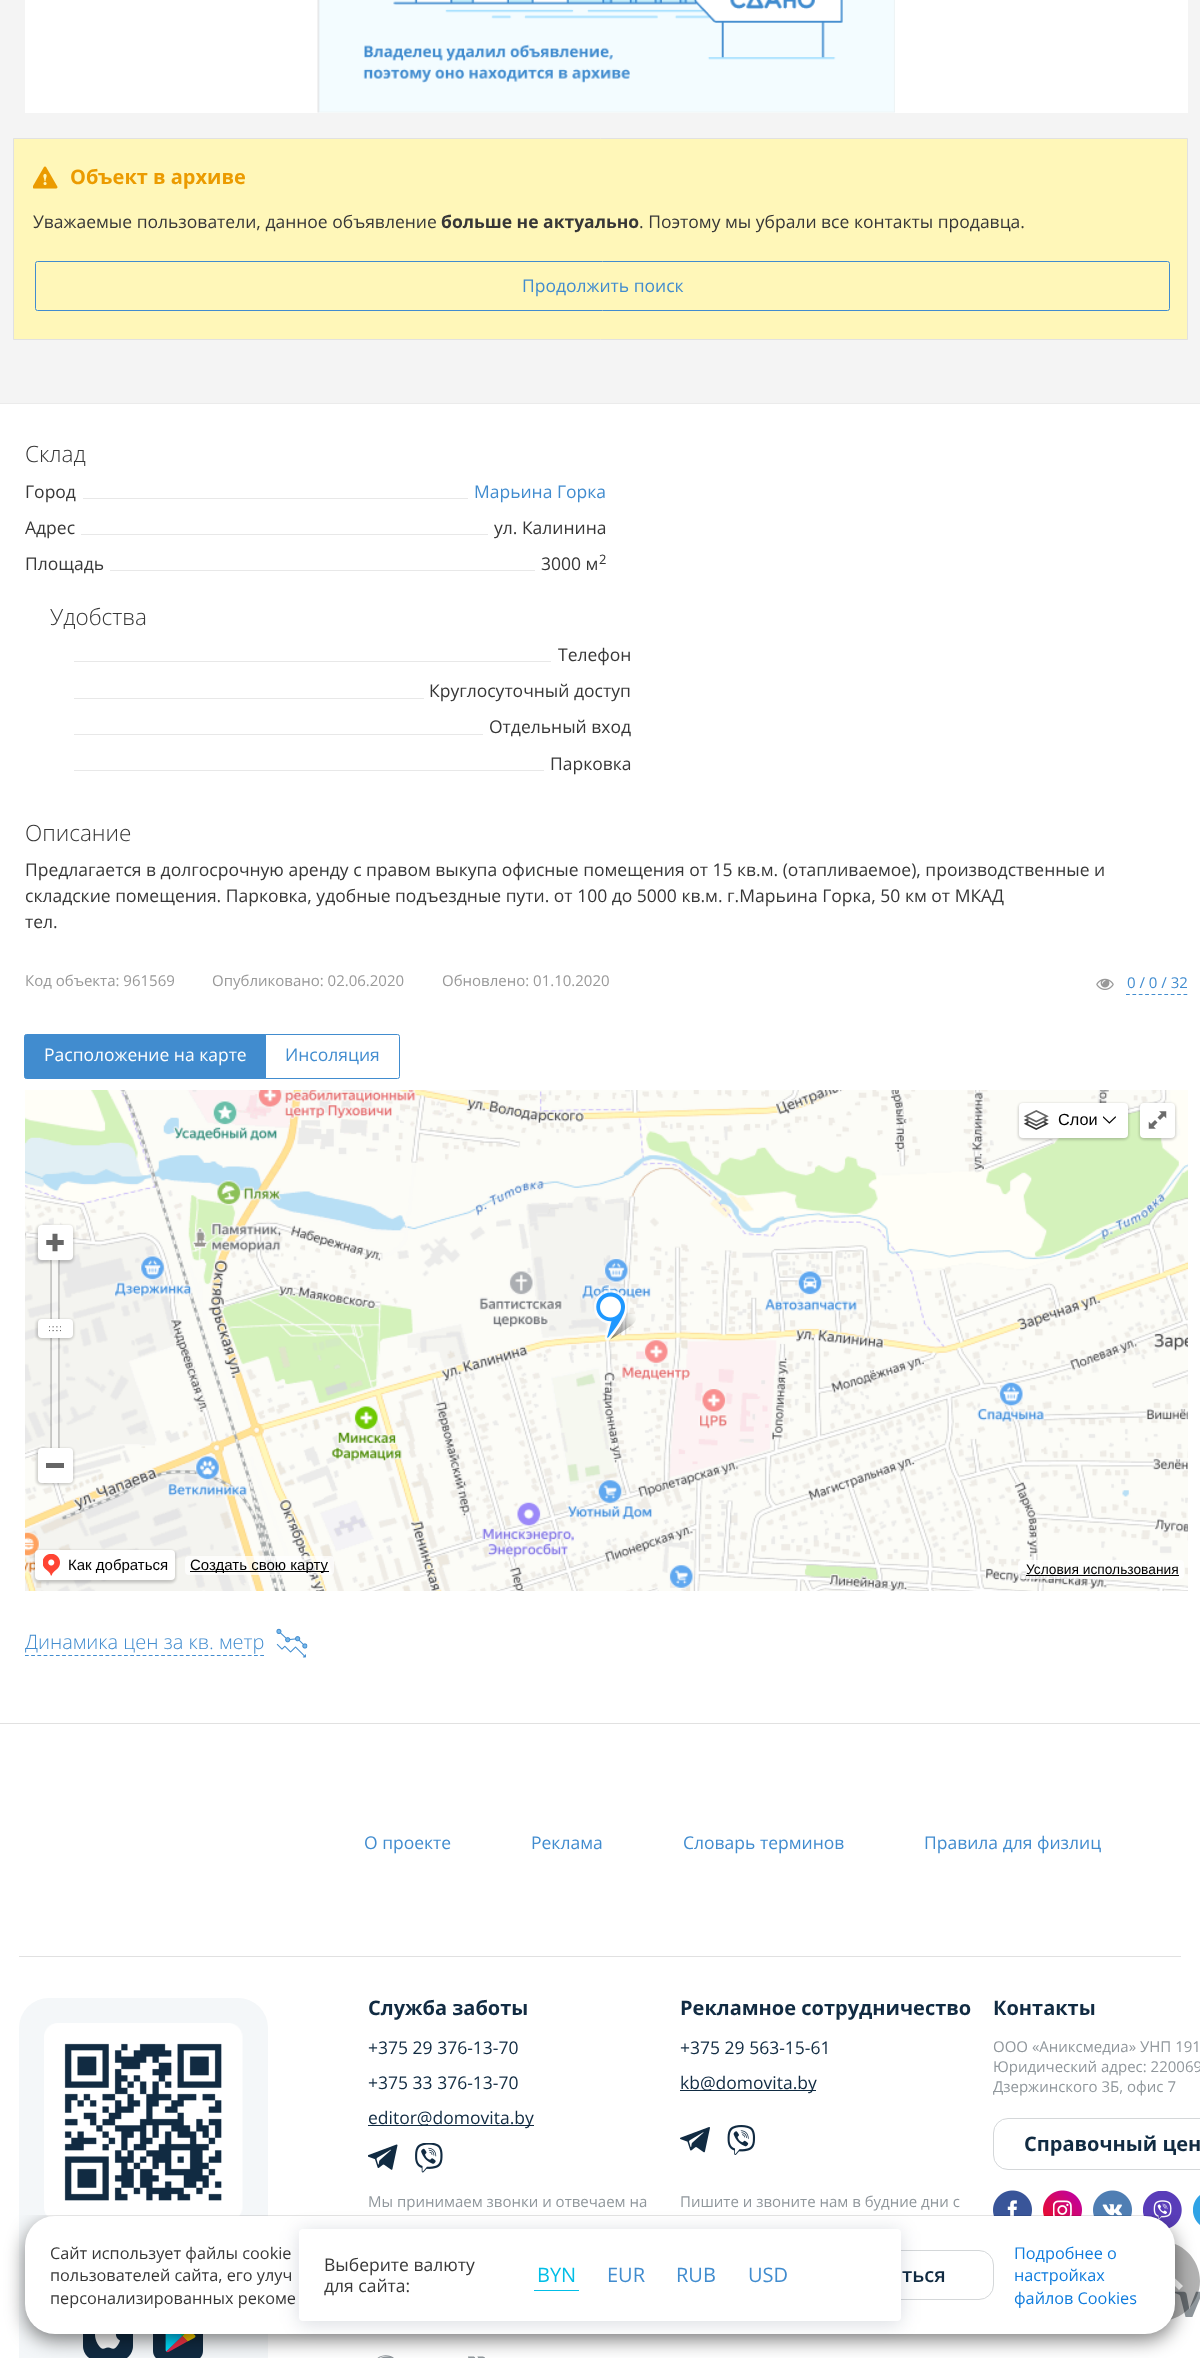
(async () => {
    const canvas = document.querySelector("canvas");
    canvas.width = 1200;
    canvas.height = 2358;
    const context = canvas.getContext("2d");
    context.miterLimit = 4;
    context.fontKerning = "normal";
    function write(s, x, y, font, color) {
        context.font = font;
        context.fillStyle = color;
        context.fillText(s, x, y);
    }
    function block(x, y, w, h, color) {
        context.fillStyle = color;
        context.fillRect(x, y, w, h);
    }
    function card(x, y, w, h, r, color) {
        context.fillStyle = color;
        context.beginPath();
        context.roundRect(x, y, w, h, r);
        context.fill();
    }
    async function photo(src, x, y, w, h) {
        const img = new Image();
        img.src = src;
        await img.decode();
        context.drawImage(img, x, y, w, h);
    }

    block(0, 0, 1200, 2358, "rgb(244, 244, 244)");
    block(0, 403, 1200, 1, "rgb(235, 235, 235)");
    block(25, 0, 1163, 113, "rgb(255, 255, 255)");
    await photo("media/1.png", 317, 0, 578, 113);
    context.fillStyle = "rgb(255, 247, 185)";
    context.beginPath();
    context.rect(13.5, 138.5, 1174, 201);
    context.fill();
    context.strokeStyle = "rgb(225, 225, 225)";
    context.stroke();
    await photo("media/2.png", 33, 166, 25, 23);
    write("Объект в архиве", 70, 184, "bold 20px Open Sans", "rgb(235, 155, 0)");
    write("Уважаемые пользователи, данное объявление", 33, 228, "17.5px Open Sans", "rgb(55, 55, 55)");
    write("больше не актуально", 441, 228, "bold 17.5px Open Sans", "rgb(55, 55, 55)");
    write(". Поэтому мы убрали все контакты продавца.", 639, 228, "17.5px Open Sans", "rgb(55, 55, 55)");
    context.beginPath();
    context.roundRect(35.5, 261.5, 1134, 49, 2);
    context.strokeStyle = "rgb(65, 140, 207)";
    context.stroke();
    write("Продолжить поиск", 522, 292, "17.5px Open Sans", "rgb(65, 140, 207)");
    block(0, 404, 1200, 1319, "rgb(255, 255, 255)");
    write("Склад", 25, 462, "300 22.5px Open Sans", "rgb(55, 55, 55)");
    write("Город", 25, 498, "17.5px Open Sans", "rgb(55, 55, 55)");
    block(83, 498, 385, 1, "rgb(232, 232, 232)");
    write("Марьина Горка", 474, 498, "17.5px Open Sans", "rgb(65, 140, 207)");
    write("Адрес", 25, 534, "17.5px Open Sans", "rgb(55, 55, 55)");
    block(81, 534, 407, 1, "rgb(232, 232, 232)");
    write("ул. Калинина", 494, 534, "17.5px Open Sans", "rgb(55, 55, 55)");
    write("Площадь", 25, 570, "17.5px Open Sans", "rgb(55, 55, 55)");
    block(110, 570, 425, 1, "rgb(232, 232, 232)");
    write("3000 м", 541, 570, "17.5px Open Sans", "rgb(55, 55, 55)");
    write("2", 599, 564, "13px Open Sans", "rgb(55, 55, 55)");
    write("Удобства", 50, 625, "300 22.5px Open Sans", "rgb(55, 55, 55)");
    block(74, 661, 477, 1, "rgb(232, 232, 232)");
    write("Телефон", 558, 661, "17.5px Open Sans", "rgb(55, 55, 55)");
    block(74, 698, 350, 1, "rgb(232, 232, 232)");
    write("Круглосуточный доступ", 429, 697, "17.5px Open Sans", "rgb(55, 55, 55)");
    block(74, 734, 409, 1, "rgb(232, 232, 232)");
    write("Отдельный вход", 489, 733, "17.5px Open Sans", "rgb(55, 55, 55)");
    block(74, 770, 470, 1, "rgb(232, 232, 232)");
    write("Парковка", 550, 770, "17.5px Open Sans", "rgb(55, 55, 55)");
    write("Описание", 25, 841, "300 22.5px Open Sans", "rgb(55, 55, 55)");
    write("Предлагается в долгосрочную аренду с правом выкупа офисные помещения от 15 кв.м. (отапливаемое), производственные и", 25, 876, "17.5px Open Sans", "rgb(55, 55, 55)");
    write("складские помещения. Парковка, удобные подъездные пути. от 100 до 5000 кв.м. г.Марьина Горка, 50 км от МКАД", 25, 902, "17.5px Open Sans", "rgb(55, 55, 55)");
    write("тел.", 25, 928, "17.5px Open Sans", "rgb(55, 55, 55)");
    write("Код объекта: 961569", 25, 986, "15px Open Sans", "rgb(153, 153, 153)");
    write("Опубликовано: 02.06.2020", 212, 986, "15px Open Sans", "rgb(153, 153, 153)");
    write("Обновлено: 01.10.2020", 442, 986, "15px Open Sans", "rgb(153, 153, 153)");
    await photo("media/3.png", 1096, 978, 18, 12);
    context.beginPath();
    context.moveTo(1126, 994.5);
    context.lineTo(1187.5, 994.5);
    context.lineWidth = 1.2;
    context.setLineDash([3.75, 2.64]);
    context.stroke();
    write("0 / 0 / 32", 1127, 988, "15px Open Sans", "rgb(65, 140, 207)");
    context.beginPath();
    context.roundRect(24.5, 1034.5, 241, 44, [2, 0, 0, 2]);
    context.fill();
    context.lineWidth = 1;
    context.setLineDash([]);
    context.stroke();
    write("Расположение на карте", 44, 1061, "17.5px Open Sans", "rgb(255, 255, 255)");
    context.beginPath();
    context.roundRect(265.5, 1034.5, 134, 44, [0, 2, 2, 0]);
    context.stroke();
    write("Инсоляция", 285, 1061, "17.5px Open Sans", "rgb(65, 140, 207)");
    await photo("media/4.png", 25, 1090, 1163, 501);
    context.fillStyle = "rgba(0, 0, 0, 0.15)";
    context.filter = "blur(3px)";
    context.beginPath();
    context.rect(1023, 1109, 101, 27);
    context.fill();
    context.filter = "none";
    context.filter = "blur(1px)";
    context.beginPath();
    context.roundRect(1018, 1103, 111, 37, 5);
    context.fill();
    context.filter = "none";
    card(1019, 1103, 109, 35, 4, "rgb(255, 255, 255)");
    await photo("media/5.png", 1023, 1110, 26, 20);
    write("Слои", 1058, 1125, "16.25px Liberation Sans", "rgb(0, 0, 0)");
    await photo("media/6.png", 1103, 1116, 13, 8);
    context.fillStyle = "rgba(0, 0, 0, 0.15)";
    context.filter = "blur(3px)";
    context.beginPath();
    context.rect(1144, 1109, 27, 27);
    context.fill();
    context.filter = "none";
    context.filter = "blur(1px)";
    context.beginPath();
    context.roundRect(1139, 1103, 37, 37, 5);
    context.fill();
    context.filter = "none";
    card(1140, 1103, 35, 35, 4, "rgb(255, 255, 255)");
    await photo("media/7.png", 1148, 1111, 19, 18);
    context.fillStyle = "rgba(0, 0, 0, 0.15)";
    context.filter = "blur(3px)";
    context.beginPath();
    context.rect(41, 1231, 28, 28);
    context.fill();
    context.filter = "none";
    context.filter = "blur(1px)";
    context.beginPath();
    context.roundRect(36, 1225, 38, 38, 5);
    context.fill();
    context.filter = "none";
    card(38, 1225, 35, 35, 4, "rgb(255, 255, 255)");
    await photo("media/8.png", 46, 1233, 18, 19);
    context.fillStyle = "rgba(0, 0, 0, 0.15)";
    context.filter = "blur(3px)";
    context.beginPath();
    context.rect(41, 1454, 28, 27);
    context.fill();
    context.filter = "none";
    context.filter = "blur(1px)";
    context.beginPath();
    context.roundRect(36, 1448, 38, 37, 5);
    context.fill();
    context.filter = "none";
    context.beginPath();
    context.moveTo(50, 1260);
    context.lineTo(50, 1448);
    context.lineTo(58, 1448);
    context.lineTo(51, 1448);
    context.lineTo(51, 1260);
    context.closePath();
    context.fill();
    context.beginPath();
    context.moveTo(53, 1448);
    context.lineTo(60, 1448);
    context.lineTo(60, 1260);
    context.lineTo(59, 1260);
    context.lineTo(59, 1448);
    context.closePath();
    context.fill();
    block(51, 1260, 8, 188, "rgba(255, 255, 255, 0.4)");
    block(58, 1260, 1, 188, "rgba(0, 0, 0, 0.2)");
    block(51, 1260, 1, 188, "rgba(0, 0, 0, 0.2)");
    context.fillStyle = "rgba(0, 0, 0, 0.15)";
    context.filter = "blur(3px)";
    context.beginPath();
    context.rect(41, 1325, 28, 11);
    context.fill();
    context.filter = "none";
    context.filter = "blur(1px)";
    context.beginPath();
    context.roundRect(36, 1319, 38, 21, 5);
    context.fill();
    context.filter = "none";
    card(38, 1319, 35, 19, 4, "rgb(255, 255, 255)");
    await photo("media/9.png", 49, 1326, 12, 6);
    card(38, 1448, 35, 35, 4, "rgb(255, 255, 255)");
    block(46, 1463, 18, 5, "rgb(102, 102, 102)");
    await photo("media/10.png", 594, 1290, 42, 51);
    context.fillStyle = "rgba(0, 0, 0, 0.15)";
    context.filter = "blur(3px)";
    context.beginPath();
    context.rect(39, 1556, 132, 23);
    context.fill();
    context.filter = "none";
    context.filter = "blur(1px)";
    context.beginPath();
    context.roundRect(34, 1550, 142, 33, 5);
    context.fill();
    context.filter = "none";
    card(35, 1550, 140, 30, 4, "rgb(255, 255, 255)");
    await photo("media/11.png", 43, 1554, 17, 22);
    write("Как добраться", 68, 1570, "15px Liberation Sans", "rgb(0, 0, 0)");
    card(185, 1556, 149, 19, 4, "rgba(255, 255, 255, 0.7)");
    block(190, 1571, 139, 1, "rgb(0, 0, 0)");
    write("Создать свою карту", 190, 1570, "15px Liberation Sans", "rgb(0, 0, 0)");
    card(1018, 1560, 166, 19, 4, "rgba(255, 255, 255, 0.75)");
    write("Условия использования", 1026, 1574, "13.75px Liberation Sans", "rgb(0, 0, 0)");
    block(1026, 1575, 153, 1, "rgb(0, 0, 0)");
    context.beginPath();
    context.moveTo(25, 1655.5);
    context.lineTo(264, 1655.5);
    context.lineWidth = 1.2;
    context.setLineDash([3.75, 2.44]);
    context.stroke();
    write("Динамика цен за кв. метр", 25, 1649, "300 20px Open Sans", "rgb(65, 140, 207)");
    await photo("media/12.png", 276, 1628, 32, 30);
    block(0, 1724, 1200, 634, "rgb(255, 255, 255)");
    block(0, 1723, 1200, 1, "rgb(225, 225, 225)");
    block(19, 1956, 1162, 1, "rgb(225, 225, 225)");
    write("О проекте", 364, 1849, "17.5px Open Sans", "rgb(65, 140, 207)");
    write("Реклама", 531, 1849, "17.5px Open Sans", "rgb(65, 140, 207)");
    write("Словарь терминов", 683, 1849, "17.5px Open Sans", "rgb(65, 140, 207)");
    write("Правила для физлиц", 924, 1849, "17.5px Open Sans", "rgb(65, 140, 207)");
    card(19, 1998, 249, 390, 30, "rgb(244, 247, 249)");
    await photo("media/13.png", 44, 2023, 199, 195);
    await photo("media/14.png", 83, 2334, 50, 24);
    await photo("media/15.png", 153, 2334, 50, 24);
    write("Служба заботы", 368, 2015, "bold 20px Open Sans", "rgb(17, 43, 66)");
    write("+375 29 376-13-70", 368, 2054, "17.5px Open Sans", "rgb(17, 43, 66)");
    write("+375 33 376-13-70", 368, 2089, "17.5px Open Sans", "rgb(17, 43, 66)");
    block(368, 2125, 166, 1, "rgb(17, 43, 66)");
    write("editor@domovita.by", 368, 2124, "17.5px Open Sans", "rgb(17, 43, 66)");
    await photo("media/16.png", 368, 2144, 30, 26);
    await photo("media/17.png", 415, 2143, 28, 30);
    write("Мы принимаем звонки и отвечаем на", 368, 2207, "15px Open Sans", "rgb(144, 151, 156)");
    write("Рекламное сотрудничество", 680, 2015, "bold 20px Open Sans", "rgb(17, 43, 66)");
    write("+375 29 563-15-61", 680, 2054, "17.5px Open Sans", "rgb(17, 43, 66)");
    block(680, 2090, 136, 1, "rgb(17, 43, 66)");
    write("kb@domovita.by", 680, 2089, "17.5px Open Sans", "rgb(17, 43, 66)");
    await photo("media/18.png", 680, 2127, 30, 26);
    await photo("media/19.png", 727, 2125, 29, 30);
    write("Пишите и звоните нам в будние дни с", 680, 2207, "15px Open Sans", "rgb(144, 151, 156)");
    write("Контакты", 993, 2015, "bold 20px Open Sans", "rgb(17, 43, 66)");
    write("ООО «Аниксмедиа» УНП 191", 993, 2052, "15px Open Sans", "rgb(144, 151, 156)");
    write("Юридический адрес: 220069", 993, 2072, "15px Open Sans", "rgb(144, 151, 156)");
    write("Дзержинского 3Б, офис 7", 993, 2092, "15px Open Sans", "rgb(144, 151, 156)");
    context.beginPath();
    context.roundRect(993.5, 2118.5, 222, 51, 14.5);
    context.strokeStyle = "rgb(212, 215, 217)";
    context.lineWidth = 1;
    context.setLineDash([]);
    context.stroke();
    write("Справочный цен", 1024, 2151, "bold 20px Open Sans", "rgb(17, 43, 66)");
    await photo("media/20.png", 993, 2190, 39, 26);
    await photo("media/21.png", 1043, 2190, 39, 26);
    await photo("media/22.png", 1093, 2190, 39, 26);
    await photo("media/23.png", 1143, 2191, 39, 38);
    await photo("media/24.png", 1193, 2195, 7, 30);
    await photo("media/25.png", 1175, 2291, 25, 26);
    await photo("media/26.png", 377, 2355, 17, 3);
    await photo("media/27.png", 468, 2356, 17, 2);
    context.fillStyle = "rgba(0, 0, 0, 0.3)";
    context.beginPath();
    context.moveTo(1160, 2241);
    context.bezierCurveTo(1138, 2241, 1120, 2259, 1120, 2281);
    context.bezierCurveTo(1120, 2303, 1138, 2321, 1160, 2321);
    context.bezierCurveTo(1182, 2321, 1200, 2303, 1200, 2281);
    context.bezierCurveTo(1200, 2259, 1182, 2241, 1160, 2241);
    context.closePath();
    context.moveTo(1179, 2290);
    context.lineTo(1160, 2271);
    context.lineTo(1141, 2290);
    context.lineTo(1137, 2286);
    context.lineTo(1160, 2264);
    context.lineTo(1183, 2286);
    context.closePath();
    context.fill();
    context.save();
    context.beginPath();
    context.rect(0, 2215, 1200, 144);
    context.clip();
    context.fillStyle = "rgba(0, 0, 0, 0.5)";
    context.filter = "blur(9.5px)";
    context.beginPath();
    context.roundRect(25, 2223, 1150, 117, 30);
    context.fill();
    context.filter = "none";
    context.restore();
    card(25, 2216, 1150, 118, 30, "rgb(255, 255, 255)");
    write("Сайт использует файлы cookie", 50, 2259, "16.25px Open Sans", "rgb(55, 55, 55)");
    write("пользователей сайта, его улуч", 50, 2281, "16.25px Open Sans", "rgb(55, 55, 55)");
    write("персонализированных рекоме", 50, 2304, "16.25px Open Sans", "rgb(55, 55, 55)");
    context.beginPath();
    context.roundRect(784.5, 2250.5, 209, 49, 14.5);
    context.stroke();
    write("ться", 902, 2282, "600 20px Open Sans", "rgb(17, 43, 66)");
    write("Подробнее о", 1014, 2259, "16.25px Open Sans", "rgb(13, 123, 221)");
    write("настройках", 1014, 2281, "16.25px Open Sans", "rgb(13, 123, 221)");
    write("файлов Cookies", 1014, 2304, "16.25px Open Sans", "rgb(13, 123, 221)");
    context.fillStyle = "rgba(0, 17, 51, 0.15)";
    context.filter = "blur(9.5px)";
    context.beginPath();
    context.roundRect(299, 2231, 602, 93, 4);
    context.fill();
    context.filter = "none";
    card(299, 2229, 602, 92, 4, "rgb(255, 255, 255)");
    write("Выберите валюту", 324, 2271, "17.5px Open Sans", "rgb(55, 55, 55)");
    write("для сайта:", 324, 2292, "17.5px Open Sans", "rgb(55, 55, 55)");
    write("BYN", 537, 2282, "20px Open Sans", "rgb(0, 190, 231)");
    block(534, 2290, 45, 1, "rgb(0, 190, 231)");
    write("EUR", 607, 2282, "20px Open Sans", "rgb(65, 140, 207)");
    write("RUB", 676, 2282, "20px Open Sans", "rgb(65, 140, 207)");
    write("USD", 748, 2282, "20px Open Sans", "rgb(65, 140, 207)");
})();
